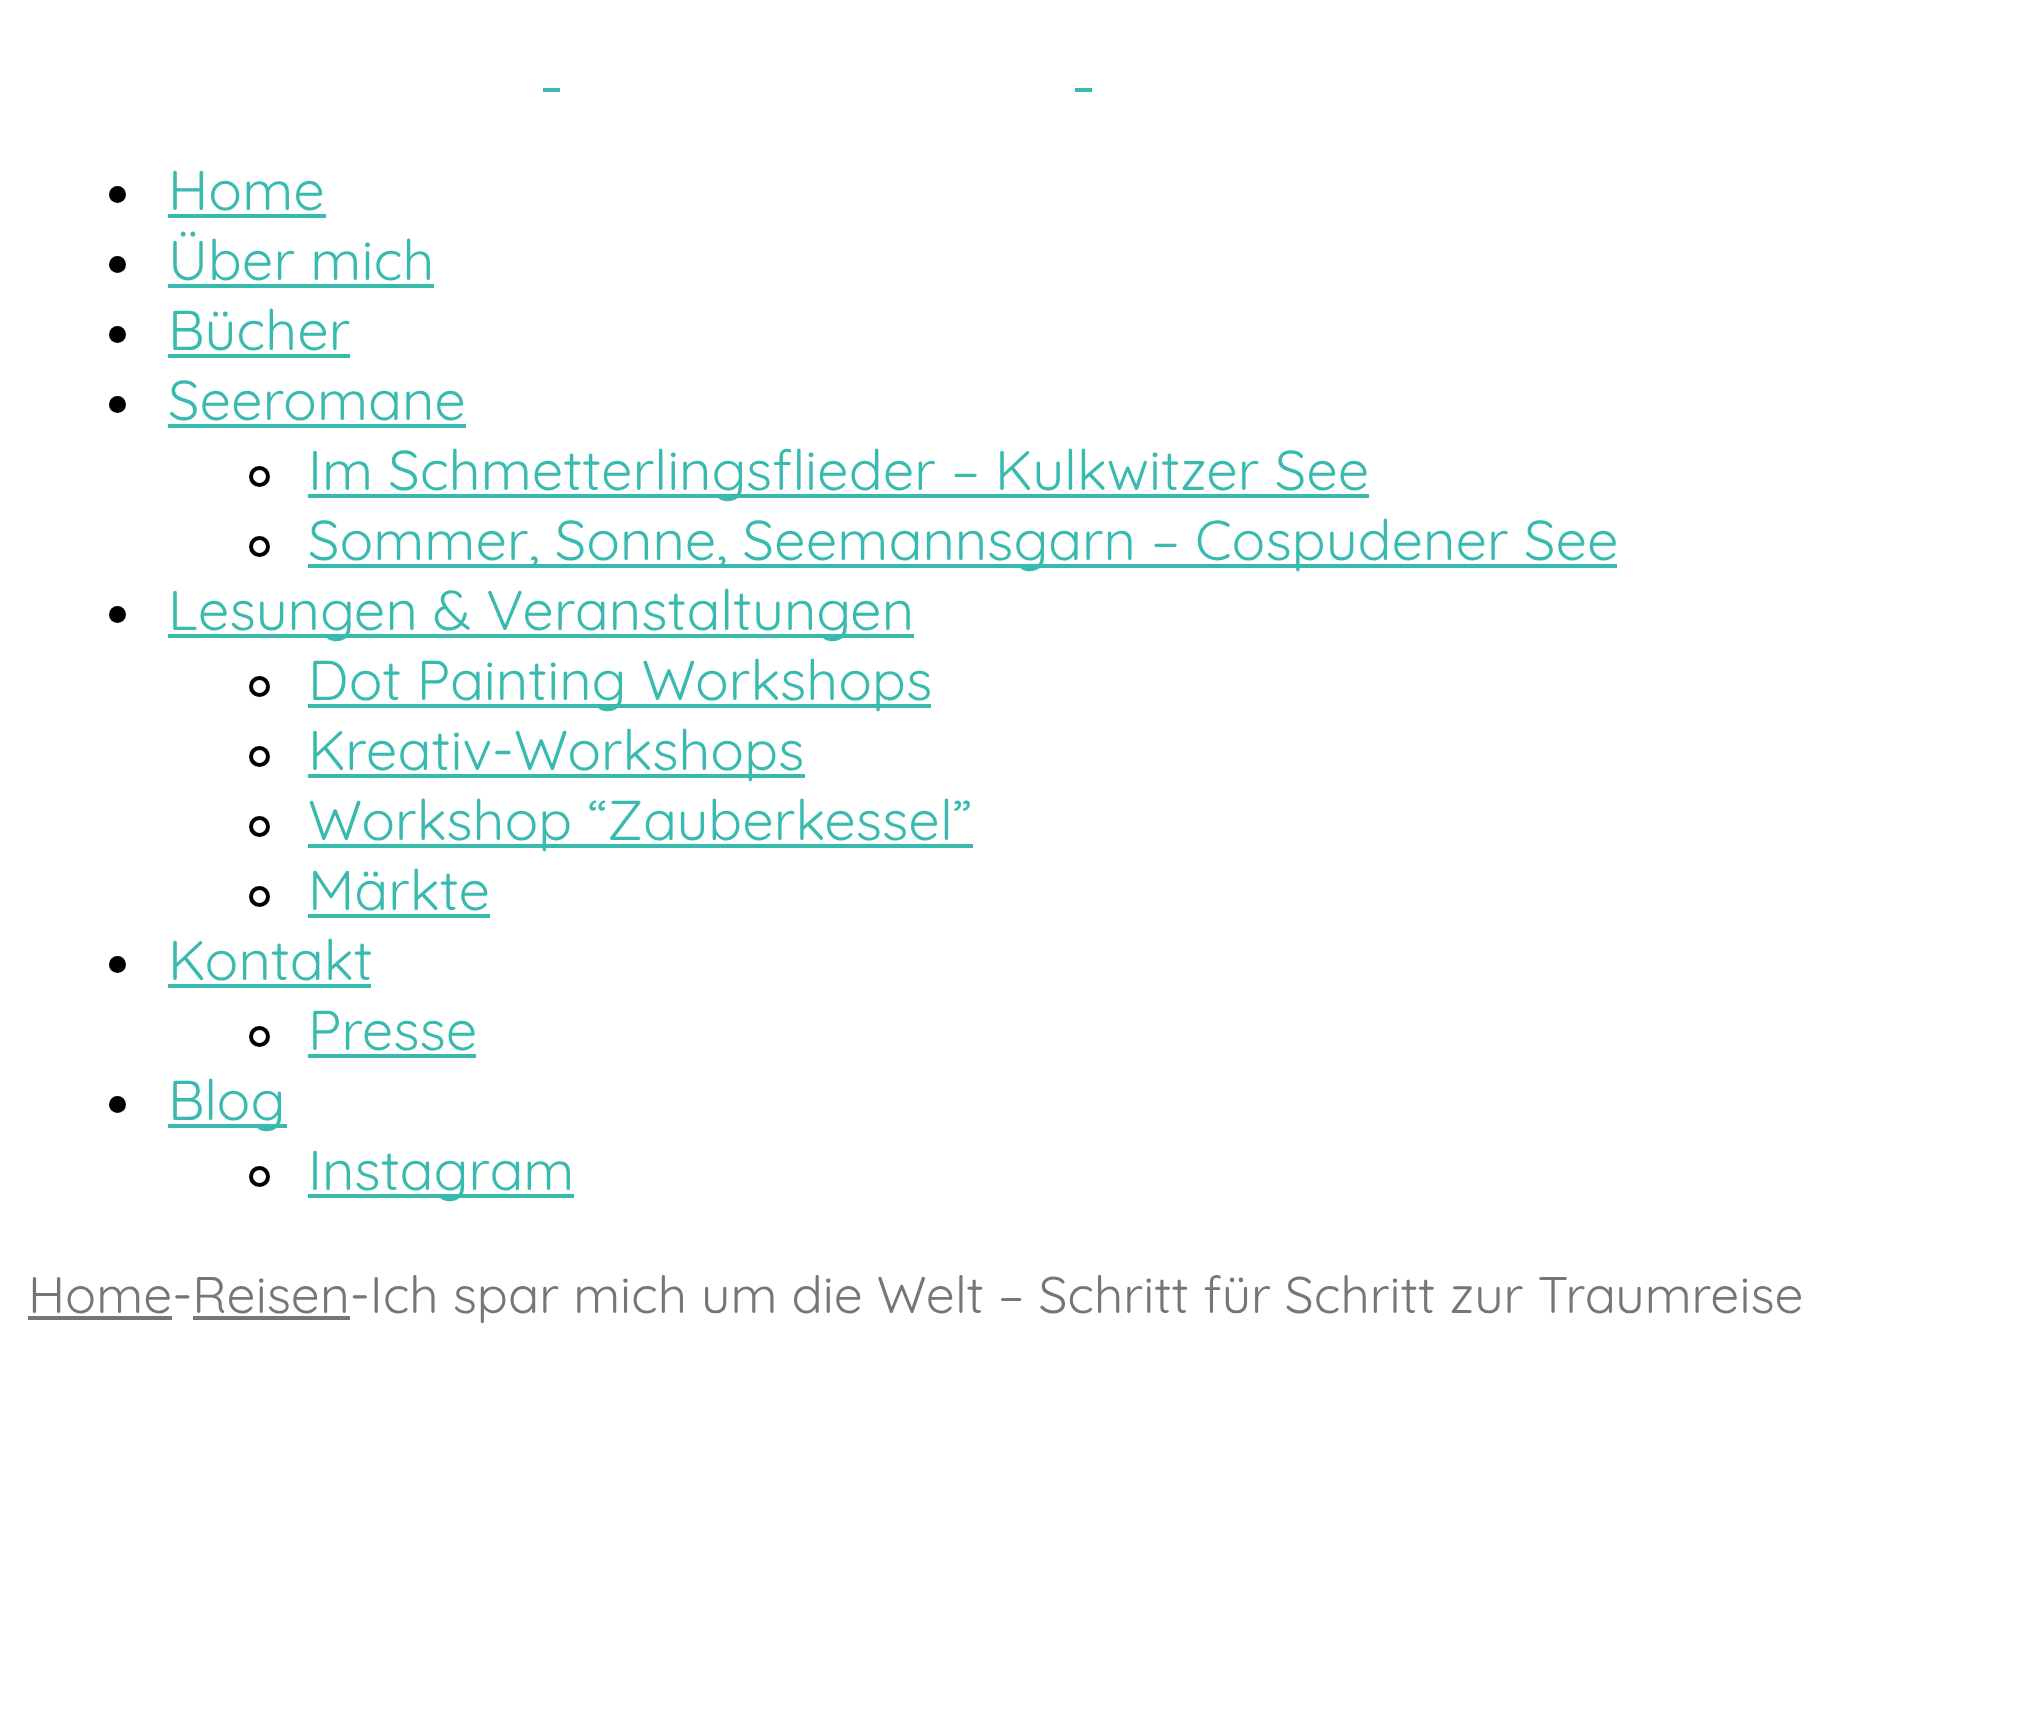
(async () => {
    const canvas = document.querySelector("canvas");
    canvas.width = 2034;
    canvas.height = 1720;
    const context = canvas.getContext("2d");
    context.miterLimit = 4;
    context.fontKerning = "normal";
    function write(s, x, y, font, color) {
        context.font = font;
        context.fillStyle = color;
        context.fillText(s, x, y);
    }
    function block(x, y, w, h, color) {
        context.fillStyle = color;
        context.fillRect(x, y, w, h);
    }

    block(0, 0, 2034, 1720, "rgb(255, 255, 255)");
    block(543, 88, 17, 4, "rgb(57, 186, 175)");
    block(1075, 88, 17, 4, "rgb(57, 186, 175)");
    context.fillStyle = "rgb(0, 0, 0)";
    context.beginPath();
    context.arc(117.5, 194.5, 8.5, 0, Math.PI * 2);
    context.fill();
    write("Home", 168, 210, "56px Quicksand", "rgb(57, 186, 175)");
    block(168, 214, 158, 4, "rgb(57, 186, 175)");
    context.fillStyle = "rgb(0, 0, 0)";
    context.beginPath();
    context.arc(117.5, 264.5, 8.5, 0, Math.PI * 2);
    context.fill();
    write("Über mich", 168, 280, "56px Quicksand", "rgb(57, 186, 175)");
    block(168, 284, 266, 4, "rgb(57, 186, 175)");
    context.fillStyle = "rgb(0, 0, 0)";
    context.beginPath();
    context.arc(117.5, 334.5, 8.5, 0, Math.PI * 2);
    context.fill();
    write("Bücher", 168, 350, "56px Quicksand", "rgb(57, 186, 175)");
    block(168, 354, 182, 4, "rgb(57, 186, 175)");
    context.fillStyle = "rgb(0, 0, 0)";
    context.beginPath();
    context.arc(117.5, 404.5, 8.5, 0, Math.PI * 2);
    context.fill();
    write("Seeromane", 168, 420, "56px Quicksand", "rgb(57, 186, 175)");
    block(168, 424, 298, 4, "rgb(57, 186, 175)");
    context.beginPath();
    context.arc(259.5, 476.5, 8.5, 0, Math.PI * 2);
    context.strokeStyle = "rgb(0, 0, 0)";
    context.lineWidth = 4;
    context.stroke();
    block(308, 494, 1061, 4, "rgb(57, 186, 175)");
    write("Im Schmetterlingsflieder – Kulkwitzer See", 308, 490, "56px Quicksand", "rgb(57, 186, 175)");
    context.beginPath();
    context.arc(259.5, 546.5, 8.5, 0, Math.PI * 2);
    context.stroke();
    block(308, 564, 1309, 4, "rgb(57, 186, 175)");
    write("Sommer, Sonne, Seemannsgarn – Cospudener See", 308, 560, "56px Quicksand", "rgb(57, 186, 175)");
    context.fillStyle = "rgb(0, 0, 0)";
    context.beginPath();
    context.arc(117.5, 614.5, 8.5, 0, Math.PI * 2);
    context.fill();
    block(168, 634, 746, 4, "rgb(57, 186, 175)");
    write("Lesungen & Veranstaltungen", 168, 630, "56px Quicksand", "rgb(57, 186, 175)");
    context.beginPath();
    context.arc(259.5, 686.5, 8.5, 0, Math.PI * 2);
    context.stroke();
    block(308, 704, 623, 4, "rgb(57, 186, 175)");
    write("Dot Painting Workshops", 308, 700, "56px Quicksand", "rgb(57, 186, 175)");
    context.beginPath();
    context.arc(259.5, 756.5, 8.5, 0, Math.PI * 2);
    context.stroke();
    block(308, 774, 497, 4, "rgb(57, 186, 175)");
    write("Kreativ-Workshops", 308, 770, "56px Quicksand", "rgb(57, 186, 175)");
    context.beginPath();
    context.arc(259.5, 826.5, 8.5, 0, Math.PI * 2);
    context.stroke();
    block(308, 844, 665, 4, "rgb(57, 186, 175)");
    write("Workshop “Zauberkessel”", 308, 840, "56px Quicksand", "rgb(57, 186, 175)");
    context.beginPath();
    context.arc(259.5, 896.5, 8.5, 0, Math.PI * 2);
    context.stroke();
    write("Märkte", 308, 910, "56px Quicksand", "rgb(57, 186, 175)");
    block(308, 914, 182, 4, "rgb(57, 186, 175)");
    context.fillStyle = "rgb(0, 0, 0)";
    context.beginPath();
    context.arc(117.5, 964.5, 8.5, 0, Math.PI * 2);
    context.fill();
    write("Kontakt", 168, 980, "56px Quicksand", "rgb(57, 186, 175)");
    block(168, 984, 203, 4, "rgb(57, 186, 175)");
    context.beginPath();
    context.arc(259.5, 1036.5, 8.5, 0, Math.PI * 2);
    context.stroke();
    write("Presse", 308, 1050, "56px Quicksand", "rgb(57, 186, 175)");
    block(308, 1054, 168, 4, "rgb(57, 186, 175)");
    context.fillStyle = "rgb(0, 0, 0)";
    context.beginPath();
    context.arc(117.5, 1104.5, 8.5, 0, Math.PI * 2);
    context.fill();
    block(168, 1124, 119, 4, "rgb(57, 186, 175)");
    write("Blog", 168, 1120, "56px Quicksand", "rgb(57, 186, 175)");
    context.beginPath();
    context.arc(259.5, 1176.5, 8.5, 0, Math.PI * 2);
    context.stroke();
    block(308, 1194, 266, 4, "rgb(57, 186, 175)");
    write("Instagram", 308, 1190, "56px Quicksand", "rgb(57, 186, 175)");
    block(28, 1316, 144, 4, "rgb(118, 118, 118)");
    write("Home-Reisen-Ich spar mich um die Welt – Schritt für Schritt zur Traumreise", 28, 1313, "51.5px Quicksand", "rgb(118, 118, 118)");
    block(193, 1316, 157, 4, "rgb(118, 118, 118)");
})();
